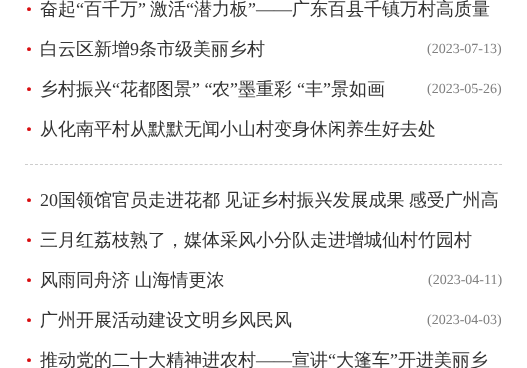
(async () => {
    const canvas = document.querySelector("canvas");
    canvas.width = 527;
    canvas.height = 368;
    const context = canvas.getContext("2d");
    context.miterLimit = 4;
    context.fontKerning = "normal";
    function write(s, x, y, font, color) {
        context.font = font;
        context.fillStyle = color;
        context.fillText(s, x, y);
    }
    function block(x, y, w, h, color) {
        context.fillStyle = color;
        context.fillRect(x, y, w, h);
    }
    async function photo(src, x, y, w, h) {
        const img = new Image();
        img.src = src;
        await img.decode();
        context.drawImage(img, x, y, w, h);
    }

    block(0, 0, 527, 368, "rgb(255, 255, 255)");
    await photo("media/1.png", 27, 7, 4, 4);
    write("奋起", 40, 15, "500 18px WenQuanYi Zen Hei", "rgb(51, 51, 51)");
    write("“", 76, 15, "18px Liberation Serif", "rgb(51, 51, 51)");
    write("百千万", 84, 15, "500 18px WenQuanYi Zen Hei", "rgb(51, 51, 51)");
    write("”", 138, 15, "18px Liberation Serif", "rgb(51, 51, 51)");
    write("激活", 150, 15, "500 18px WenQuanYi Zen Hei", "rgb(51, 51, 51)");
    write("“", 186, 15, "18px Liberation Serif", "rgb(51, 51, 51)");
    write("潜力板", 194, 15, "500 18px WenQuanYi Zen Hei", "rgb(51, 51, 51)");
    write("”——", 248, 15, "18px Liberation Serif", "rgb(51, 51, 51)");
    write("广东百县千镇万村高质量", 292, 15, "500 18px WenQuanYi Zen Hei", "rgb(51, 51, 51)");
    await photo("media/1.png", 27, 47, 4, 4);
    write("白云区新增", 40, 55, "500 18px WenQuanYi Zen Hei", "rgb(51, 51, 51)");
    write("9", 130, 55, "18px Liberation Serif", "rgb(51, 51, 51)");
    write("条市级美丽乡村", 139, 55, "500 18px WenQuanYi Zen Hei", "rgb(51, 51, 51)");
    write("(2023-07-13)", 427, 53, "14px Liberation Serif", "rgb(128, 128, 128)");
    await photo("media/1.png", 27, 87, 4, 4);
    write("乡村振兴", 40, 95, "500 18px WenQuanYi Zen Hei", "rgb(51, 51, 51)");
    write("“", 112, 95, "18px Liberation Serif", "rgb(51, 51, 51)");
    write("花都图景", 120, 95, "500 18px WenQuanYi Zen Hei", "rgb(51, 51, 51)");
    write("” “", 192, 95, "18px Liberation Serif", "rgb(51, 51, 51)");
    write("农", 212, 95, "500 18px WenQuanYi Zen Hei", "rgb(51, 51, 51)");
    write("”", 230, 95, "18px Liberation Serif", "rgb(51, 51, 51)");
    write("墨重彩", 238, 95, "500 18px WenQuanYi Zen Hei", "rgb(51, 51, 51)");
    write("“", 297, 95, "18px Liberation Serif", "rgb(51, 51, 51)");
    write("丰", 305, 95, "500 18px WenQuanYi Zen Hei", "rgb(51, 51, 51)");
    write("”", 323, 95, "18px Liberation Serif", "rgb(51, 51, 51)");
    write("景如画", 331, 95, "500 18px WenQuanYi Zen Hei", "rgb(51, 51, 51)");
    write("(2023-05-26)", 427, 93, "14px Liberation Serif", "rgb(128, 128, 128)");
    await photo("media/1.png", 27, 127, 4, 4);
    write("从化南平村从默默无闻小山村变身休闲养生好去处", 40, 135, "500 18px WenQuanYi Zen Hei", "rgb(51, 51, 51)");
    context.beginPath();
    context.moveTo(25, 164.5);
    context.lineTo(502, 164.5);
    context.strokeStyle = "rgb(205, 205, 205)";
    context.setLineDash([3, 1.99]);
    context.stroke();
    await photo("media/1.png", 27, 198, 4, 4);
    write("20", 40, 206, "18px Liberation Serif", "rgb(51, 51, 51)");
    context.wordSpacing = "-1px";
    write("国领馆官员走进花都 见证乡村振兴发展成果 感受广州高", 58, 206, "500 18px WenQuanYi Zen Hei", "rgb(51, 51, 51)");
    await photo("media/1.png", 27, 238, 4, 4);
    context.wordSpacing = "0px";
    write("三月红荔枝熟了，媒体采风小分队走进增城仙村竹园村", 40, 246, "500 18px WenQuanYi Zen Hei", "rgb(51, 51, 51)");
    await photo("media/1.png", 27, 278, 4, 4);
    context.wordSpacing = "-1px";
    write("风雨同舟济 山海情更浓", 40, 286, "500 18px WenQuanYi Zen Hei", "rgb(51, 51, 51)");
    context.wordSpacing = "0px";
    write("(2023-04-11)", 428, 284, "14px Liberation Serif", "rgb(128, 128, 128)");
    await photo("media/1.png", 27, 318, 4, 4);
    write("广州开展活动建设文明乡风民风", 40, 326, "500 18px WenQuanYi Zen Hei", "rgb(51, 51, 51)");
    write("(2023-04-03)", 427, 324, "14px Liberation Serif", "rgb(128, 128, 128)");
    await photo("media/1.png", 27, 358, 4, 4);
    write("推动党的二十大精神进农村", 40, 366, "500 18px WenQuanYi Zen Hei", "rgb(51, 51, 51)");
    write("——", 256, 366, "18px Liberation Serif", "rgb(51, 51, 51)");
    write("宣讲", 292, 366, "500 18px WenQuanYi Zen Hei", "rgb(51, 51, 51)");
    write("“", 328, 366, "18px Liberation Serif", "rgb(51, 51, 51)");
    write("大篷车", 336, 366, "500 18px WenQuanYi Zen Hei", "rgb(51, 51, 51)");
    write("”", 390, 366, "18px Liberation Serif", "rgb(51, 51, 51)");
    write("开进美丽乡", 398, 366, "500 18px WenQuanYi Zen Hei", "rgb(51, 51, 51)");
})();
